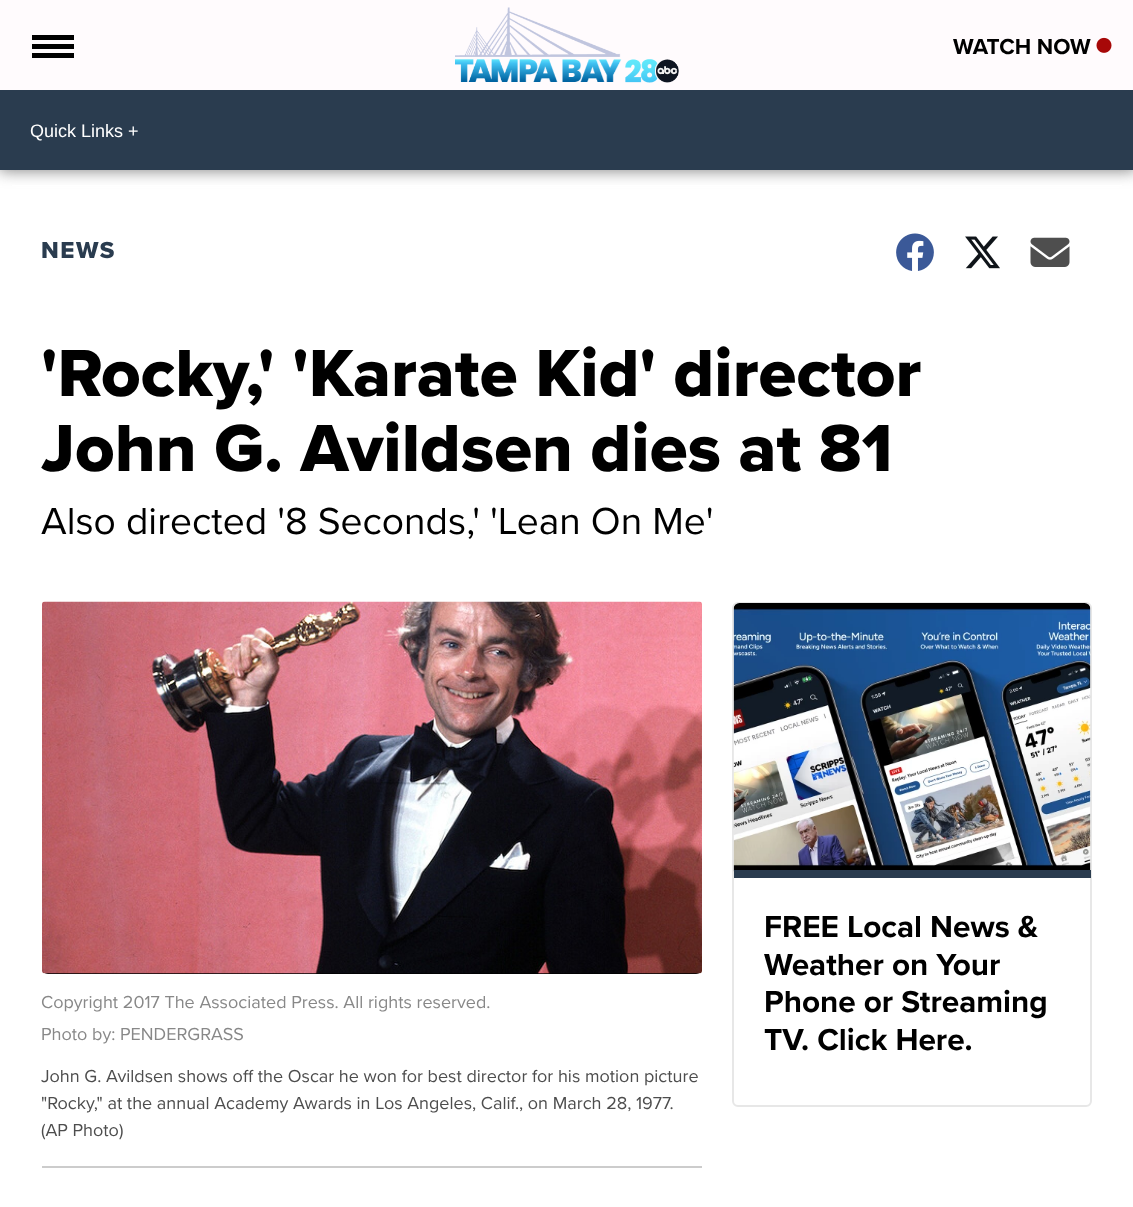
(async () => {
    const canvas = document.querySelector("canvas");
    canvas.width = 1133;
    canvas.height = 1207;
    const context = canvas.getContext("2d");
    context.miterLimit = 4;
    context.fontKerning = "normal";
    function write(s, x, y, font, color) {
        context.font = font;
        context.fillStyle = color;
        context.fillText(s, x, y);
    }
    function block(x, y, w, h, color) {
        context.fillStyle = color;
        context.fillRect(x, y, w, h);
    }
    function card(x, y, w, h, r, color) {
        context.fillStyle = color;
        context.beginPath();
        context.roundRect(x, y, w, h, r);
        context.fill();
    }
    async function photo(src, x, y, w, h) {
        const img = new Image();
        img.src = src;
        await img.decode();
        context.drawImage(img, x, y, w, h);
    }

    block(0, 0, 1133, 1207, "rgb(255, 255, 255)");
    context.fillStyle = "rgba(97, 97, 97, 0.76)";
    context.filter = "blur(7.5px)";
    context.beginPath();
    context.rect(-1, -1, 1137, 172);
    context.fill();
    context.filter = "none";
    block(0, 0, 1133, 90, "rgb(255, 251, 253)");
    block(32, 35, 42, 5, "rgb(0, 0, 0)");
    block(32, 44, 42, 5, "rgb(0, 0, 0)");
    block(32, 53, 42, 5, "rgb(0, 0, 0)");
    await photo("media/1.png", 455, 7, 224, 76);
    write("WATCH NOW", 953, 54, "bold 22.5px Proxima Nova", "rgb(0, 0, 0)");
    await photo("media/2.png", 1096, 37, 16, 16);
    block(0, 90, 1133, 80, "rgb(42, 60, 79)");
    write("Quick Links +", 30, 137, "18px Liberation Sans", "rgb(255, 255, 255)");
    block(12, 185, 1110, 1, "rgb(255, 255, 255)");
    context.letterSpacing = "1.5px";
    write("NEWS", 41, 258, "800 24px Proxima Nova", "rgb(42, 60, 79)");
    await photo("media/3.png", 896, 233, 38, 38);
    await photo("media/4.png", 965, 236, 35, 33);
    await photo("media/5.png", 1030, 237, 40, 30);
    context.letterSpacing = "0px";
    write("'Rocky,' 'Karate Kid' director", 41, 396, "800 69px Proxima Nova", "rgb(0, 0, 0)");
    write("John G. Avildsen dies at 81", 41, 471, "800 69px Proxima Nova", "rgb(0, 0, 0)");
    write("Also directed '8 Seconds,' 'Lean On Me'", 41, 534, "39px Proxima Nova", "rgb(0, 0, 0)");
    block(42, 1166, 660, 2, "rgb(204, 204, 204)");
    card(42, 602, 660, 372, 6, "rgb(0, 0, 0)");
    await photo("media/6.png", 42, 601, 660, 373);
    write("Copyright 2017 The Associated Press. All rights reserved.", 41, 1008, "18px Proxima Nova", "rgb(136, 136, 136)");
    write("Photo by: PENDERGRASS", 41, 1040, "18px Proxima Nova", "rgb(136, 136, 136)");
    write("John G. Avildsen shows off the Oscar he won for best director for his motion picture", 41, 1082, "18px Proxima Nova", "rgb(77, 77, 77)");
    write("\"Rocky,\" at the annual Academy Awards in Los Angeles, Calif., on March 28, 1977.", 41, 1109, "18px Proxima Nova", "rgb(77, 77, 77)");
    write("(AP Photo)", 41, 1136, "18px Proxima Nova", "rgb(77, 77, 77)");
    context.beginPath();
    context.roundRect(733, 603, 358, 503, 5);
    context.strokeStyle = "rgb(231, 231, 231)";
    context.lineWidth = 2;
    context.stroke();
    await photo("media/7.png", 733, 603, 358, 269);
    block(734, 870, 357, 8, "rgb(42, 60, 79)");
    write("FREE Local News &", 764, 937, "bold 31.5px Proxima Nova", "rgb(0, 0, 0)");
    write("Weather on Your", 764, 975, "bold 31.5px Proxima Nova", "rgb(0, 0, 0)");
    write("Phone or Streaming", 764, 1012, "bold 31.5px Proxima Nova", "rgb(0, 0, 0)");
    write("TV. Click Here.", 764, 1050, "bold 31.5px Proxima Nova", "rgb(0, 0, 0)");
})();
